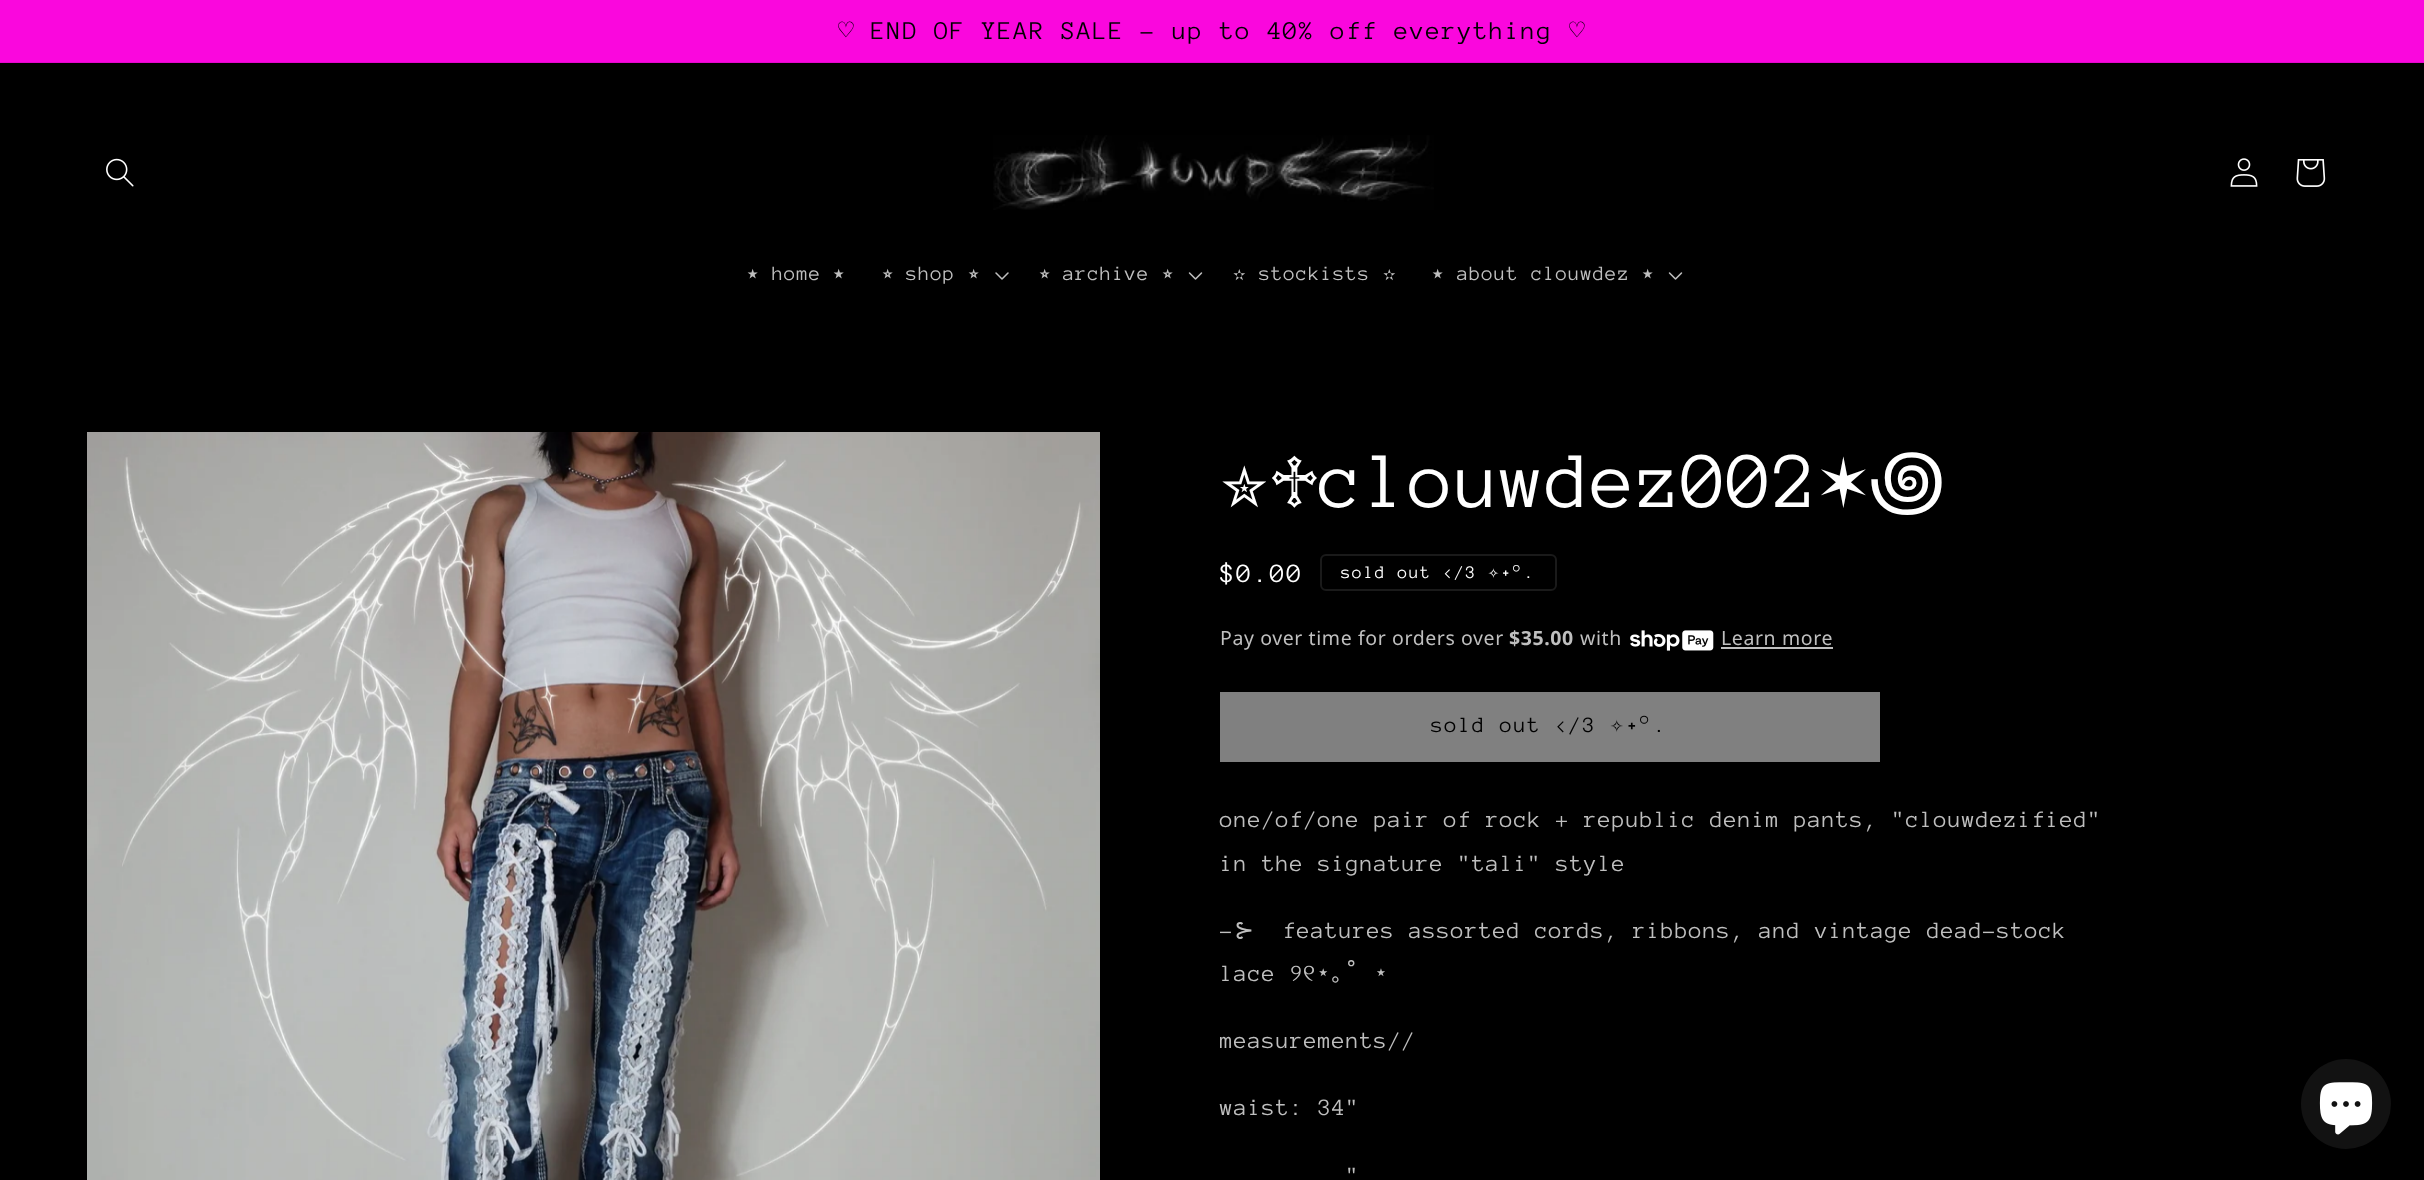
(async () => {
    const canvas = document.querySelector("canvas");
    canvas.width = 2424;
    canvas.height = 1180;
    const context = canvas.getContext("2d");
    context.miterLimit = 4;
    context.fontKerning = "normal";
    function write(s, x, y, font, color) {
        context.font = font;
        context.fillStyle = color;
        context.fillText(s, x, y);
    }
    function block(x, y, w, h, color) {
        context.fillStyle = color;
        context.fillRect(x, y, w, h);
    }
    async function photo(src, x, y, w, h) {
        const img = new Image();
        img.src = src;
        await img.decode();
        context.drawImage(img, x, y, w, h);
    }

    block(0, 0, 2424, 1180, "rgb(0, 0, 0)");
    block(0, 0, 2424, 62, "rgb(250, 7, 221)");
    block(0, 62, 2424, 1, "rgb(230, 6, 203)");
    context.letterSpacing = "1.5px";
    write("♡", 838, 39, "26.3px DejaVu Sans Mono", "rgb(0, 0, 0)");
    write("END OF YEAR SALE - up to 40% off everything", 871, 39, "26.3px Anonymous Pro", "rgb(0, 0, 0)");
    write("♡", 1569, 39, "26.3px DejaVu Sans Mono", "rgb(0, 0, 0)");
    await photo("media/1.png", 106, 158, 28, 29);
    await photo("media/2.png", 993, 135, 441, 75);
    await photo("media/3.png", 2230, 158, 28, 29);
    await photo("media/4.png", 2296, 159, 30, 28);
    context.letterSpacing = "0.9px";
    write("⭑", 747, 280, "21px FreeSans", "rgb(191, 191, 191)");
    write("home", 772, 280, "21px Anonymous Pro", "rgb(191, 191, 191)");
    write("⭑", 833, 280, "21px FreeSans", "rgb(191, 191, 191)");
    write("⭒", 882, 280, "21px FreeSans", "rgb(191, 191, 191)");
    write("shop", 906, 280, "21px Anonymous Pro", "rgb(191, 191, 191)");
    write("⭒", 968, 280, "21px FreeSans", "rgb(191, 191, 191)");
    await photo("media/5.png", 995, 272, 14, 8);
    write("⭒", 1039, 280, "21px FreeSans", "rgb(191, 191, 191)");
    write("archive", 1063, 280, "21px Anonymous Pro", "rgb(191, 191, 191)");
    write("⭒", 1162, 280, "21px FreeSans", "rgb(191, 191, 191)");
    await photo("media/6.png", 1188, 272, 15, 8);
    write("✫", 1233, 280, "21px DejaVu Sans Mono", "rgb(191, 191, 191)");
    write("stockists", 1259, 280, "21px Anonymous Pro", "rgb(191, 191, 191)");
    write("✫", 1383, 280, "21px DejaVu Sans Mono", "rgb(191, 191, 191)");
    write("⭑", 1432, 280, "21px FreeSans", "rgb(191, 191, 191)");
    write("about clouwdez", 1457, 280, "21px Anonymous Pro", "rgb(191, 191, 191)");
    write("⭑", 1642, 280, "21px FreeSans", "rgb(191, 191, 191)");
    await photo("media/6.png", 1668, 272, 15, 8);
    await photo("media/7.png", 87, 432, 1013, 748);
    context.letterSpacing = "1.25px";
    write("✮♱", 1220, 507, "81px DejaVu Sans Mono", "rgb(255, 255, 255)");
    write("clouwdez002", 1319, 507, "81px Anonymous Pro", "rgb(255, 255, 255)");
    write("✶", 1819, 507, "81px DejaVu Sans Mono", "rgb(255, 255, 255)");
    write("꩜", 1869, 507, "81px Noto Sans Cham", "rgb(255, 255, 255)");
    context.letterSpacing = "2px";
    write("$0.00", 1220, 582, "27px Anonymous Pro", "rgb(255, 255, 255)");
    context.beginPath();
    context.roundRect(1321, 555, 235, 35, 5);
    context.strokeStyle = "rgb(26, 26, 26)";
    context.lineWidth = 2;
    context.stroke();
    context.letterSpacing = "1.5px";
    write("sold out <\/3", 1341, 578, "18px Anonymous Pro", "rgb(255, 255, 255)");
    write("✧˖", 1488, 578, "18px DejaVu Sans Mono", "rgb(255, 255, 255)");
    write("°.", 1513, 578, "18px Anonymous Pro", "rgb(255, 255, 255)");
    context.letterSpacing = "0.6px";
    write("Pay over time for orders over", 1220, 645, "19.5px Noto Sans", "rgb(191, 191, 191)");
    write("$35.00", 1509, 645, "bold 19.5px Noto Sans", "rgb(191, 191, 191)");
    write("with", 1580, 645, "19.5px Noto Sans", "rgb(191, 191, 191)");
    await photo("media/8.png", 1630, 630, 84, 21);
    write("Learn more", 1721, 645, "19.5px Noto Sans", "rgb(191, 191, 191)");
    block(1721, 647, 112, 2, "rgb(191, 191, 191)");
    block(1220, 692, 660, 70, "rgb(128, 128, 128)");
    context.letterSpacing = "1.5px";
    write("sold out <\/3", 1431, 732, "22.5px Anonymous Pro", "rgb(0, 0, 0)");
    write("✧˖", 1610, 732, "22.5px DejaVu Sans Mono", "rgb(0, 0, 0)");
    write("°.", 1640, 732, "22.5px Anonymous Pro", "rgb(0, 0, 0)");
    context.letterSpacing = "0.9px";
    write("one/of/one pair of rock + republic denim pants, \"clouwdezified\"", 1220, 827, "24px Anonymous Pro", "rgb(191, 191, 191)");
    write("in the signature \"tali\" style", 1220, 871, "24px Anonymous Pro", "rgb(191, 191, 191)");
    write("-", 1220, 938, "24px Anonymous Pro", "rgb(191, 191, 191)");
    write("⊱", 1234, 938, "24px DejaVu Sans", "rgb(191, 191, 191)");
    write("features assorted cords, ribbons, and vintage dead-stock", 1283, 938, "24px Anonymous Pro", "rgb(191, 191, 191)");
    write("lace", 1220, 981, "24px Anonymous Pro", "rgb(191, 191, 191)");
    write("୨୧", 1290, 981, "24px FreeSerif", "rgb(191, 191, 191)");
    write("⋆", 1316, 981, "24px DejaVu Sans Mono", "rgb(191, 191, 191)");
    context.wordSpacing = "-1px";
    write("˚ ⋆", 1344, 981, "24px DejaVu Sans Mono", "rgb(191, 191, 191)");
    context.wordSpacing = "0px";
    write("｡", 1331, 981, "24px IPAGothic", "rgb(191, 191, 191)");
    write("measurements//", 1220, 1048, "24px Anonymous Pro", "rgb(191, 191, 191)");
    write("waist: 34\"", 1220, 1115, "24px Anonymous Pro", "rgb(191, 191, 191)");
    write("\"", 1346, 1183, "24px Anonymous Pro", "rgb(191, 191, 191)");
    context.fillStyle = "rgb(18, 18, 18)";
    context.beginPath();
    context.arc(2346, 1104, 45, 0, Math.PI * 2);
    context.fill();
    await photo("media/9.png", 2319, 1082, 54, 53);
})();
